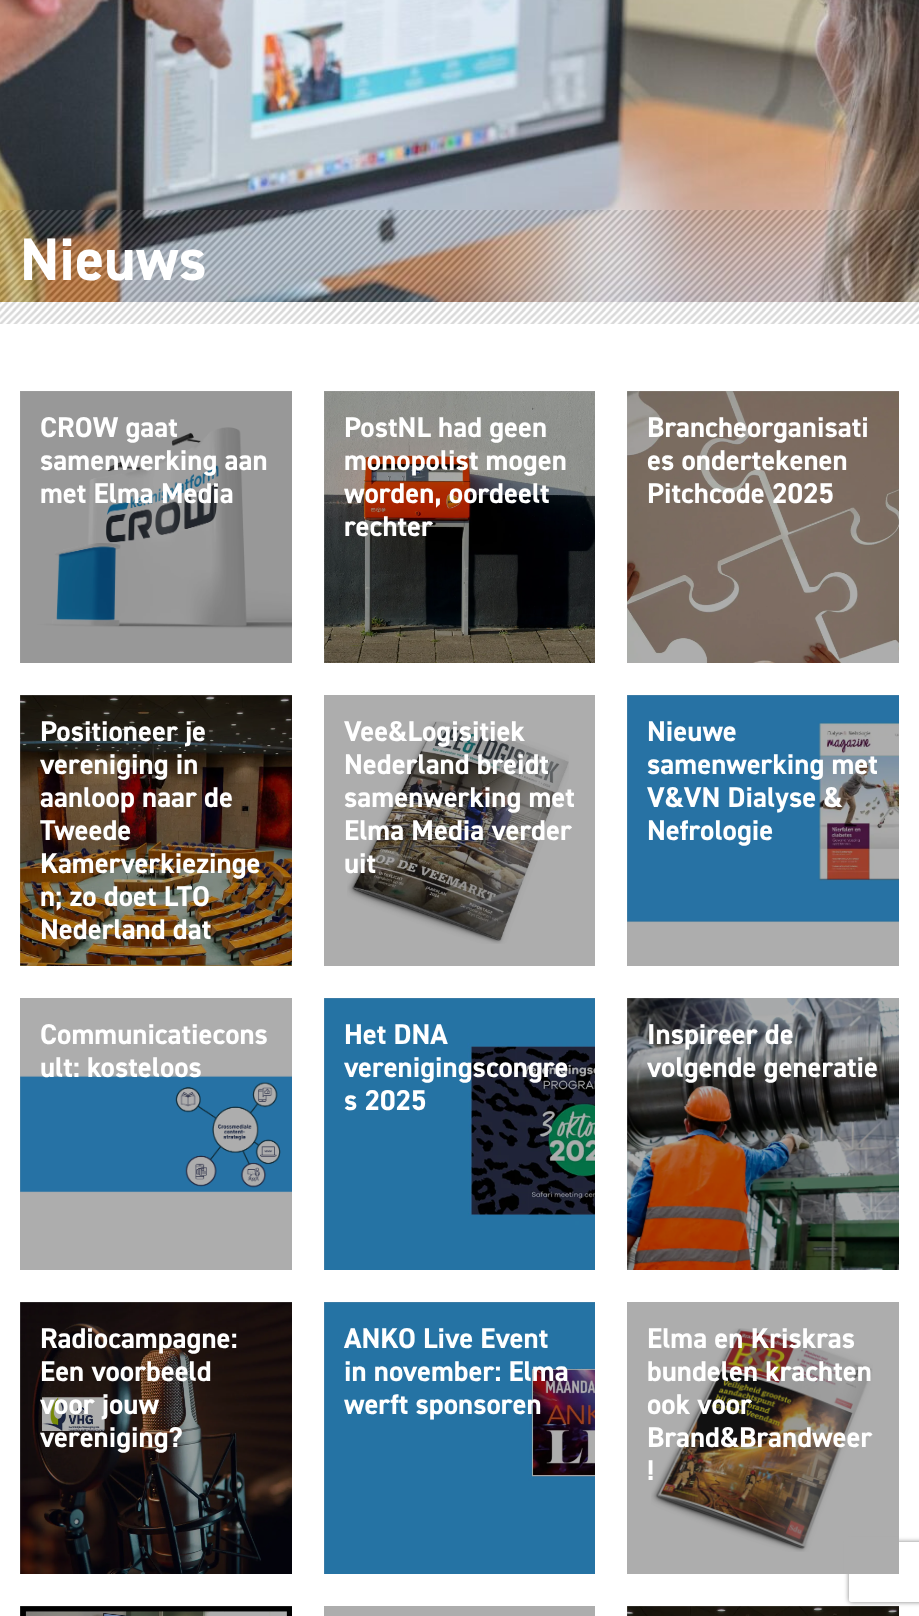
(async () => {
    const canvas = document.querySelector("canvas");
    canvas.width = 919;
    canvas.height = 1616;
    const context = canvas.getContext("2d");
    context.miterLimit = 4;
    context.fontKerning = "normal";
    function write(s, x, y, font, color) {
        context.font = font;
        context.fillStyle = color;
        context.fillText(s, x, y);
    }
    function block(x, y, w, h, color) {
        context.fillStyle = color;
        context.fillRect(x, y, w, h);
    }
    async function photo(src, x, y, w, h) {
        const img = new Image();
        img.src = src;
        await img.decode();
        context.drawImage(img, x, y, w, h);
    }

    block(0, 0, 919, 1616, "rgb(255, 255, 255)");
    block(20, 1606, 272, 10, "rgb(173, 173, 173)");
    block(324, 1302, 271, 272, "rgb(173, 173, 173)");
    block(20, 1302, 272, 272, "rgb(173, 173, 173)");
    block(627, 998, 272, 272, "rgb(173, 173, 173)");
    block(324, 998, 271, 272, "rgb(173, 173, 173)");
    block(20, 998, 272, 272, "rgb(173, 173, 173)");
    block(627, 695, 272, 271, "rgb(173, 173, 173)");
    block(324, 695, 271, 271, "rgb(173, 173, 173)");
    block(20, 695, 272, 271, "rgb(173, 173, 173)");
    block(627, 391, 272, 272, "rgb(173, 173, 173)");
    block(324, 391, 271, 272, "rgb(173, 173, 173)");
    block(20, 391, 272, 272, "rgb(173, 173, 173)");
    await photo("media/1.png", 0, 0, 919, 302);
    await photo("media/2.png", 0, 210, 919, 114);
    write("Nieuws", 20, 280, "bold 60px 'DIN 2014'", "rgb(255, 255, 255)");
    await photo("media/3.png", 20, 391, 272, 272);
    write("CROW gaat", 40, 437, "bold 28.75px 'DIN 2014'", "rgb(255, 255, 255)");
    write("samenwerking aan", 40, 470, "bold 28.75px 'DIN 2014'", "rgb(255, 255, 255)");
    write("met Elma Media", 40, 503, "bold 28.75px 'DIN 2014'", "rgb(255, 255, 255)");
    await photo("media/4.png", 324, 391, 271, 272);
    write("PostNL had geen", 344, 437, "bold 28.75px 'DIN 2014'", "rgb(255, 255, 255)");
    write("monopolist mogen", 344, 470, "bold 28.75px 'DIN 2014'", "rgb(255, 255, 255)");
    write("worden, oordeelt", 344, 503, "bold 28.75px 'DIN 2014'", "rgb(255, 255, 255)");
    write("rechter", 344, 536, "bold 28.75px 'DIN 2014'", "rgb(255, 255, 255)");
    await photo("media/5.png", 627, 391, 272, 272);
    write("Brancheorganisati", 647, 437, "bold 28.75px 'DIN 2014'", "rgb(255, 255, 255)");
    write("es ondertekenen", 647, 470, "bold 28.75px 'DIN 2014'", "rgb(255, 255, 255)");
    write("Pitchcode 2025", 647, 503, "bold 28.75px 'DIN 2014'", "rgb(255, 255, 255)");
    await photo("media/6.png", 20, 695, 272, 271);
    write("Positioneer je", 40, 741, "bold 28.75px 'DIN 2014'", "rgb(255, 255, 255)");
    write("vereniging in", 40, 774, "bold 28.75px 'DIN 2014'", "rgb(255, 255, 255)");
    write("aanloop naar de", 40, 807, "bold 28.75px 'DIN 2014'", "rgb(255, 255, 255)");
    write("Tweede", 40, 840, "bold 28.75px 'DIN 2014'", "rgb(255, 255, 255)");
    write("Kamerverkiezinge", 40, 873, "bold 28.75px 'DIN 2014'", "rgb(255, 255, 255)");
    write("n; zo doet LTO", 40, 906, "bold 28.75px 'DIN 2014'", "rgb(255, 255, 255)");
    write("Nederland dat", 40, 939, "bold 28.75px 'DIN 2014'", "rgb(255, 255, 255)");
    await photo("media/7.png", 347, 721, 222, 223);
    write("Vee&Logisitiek", 344, 741, "bold 28.75px 'DIN 2014'", "rgb(255, 255, 255)");
    write("Nederland breidt", 344, 774, "bold 28.75px 'DIN 2014'", "rgb(255, 255, 255)");
    write("samenwerking met", 344, 807, "bold 28.75px 'DIN 2014'", "rgb(255, 255, 255)");
    write("Elma Media verder", 344, 840, "bold 28.75px 'DIN 2014'", "rgb(255, 255, 255)");
    write("uit", 344, 873, "bold 28.75px 'DIN 2014'", "rgb(255, 255, 255)");
    await photo("media/8.png", 627, 695, 272, 228);
    write("Nieuwe", 647, 741, "bold 28.75px 'DIN 2014'", "rgb(255, 255, 255)");
    write("samenwerking met", 647, 774, "bold 28.75px 'DIN 2014'", "rgb(255, 255, 255)");
    write("V&VN Dialyse &", 647, 807, "bold 28.75px 'DIN 2014'", "rgb(255, 255, 255)");
    write("Nefrologie", 647, 840, "bold 28.75px 'DIN 2014'", "rgb(255, 255, 255)");
    write("Communicatiecons", 40, 1044, "bold 28.75px 'DIN 2014'", "rgb(255, 255, 255)");
    await photo("media/9.png", 20, 1075, 272, 118);
    write("ult: kosteloos", 40, 1077, "bold 28.75px 'DIN 2014'", "rgb(255, 255, 255)");
    await photo("media/10.png", 324, 998, 271, 272);
    write("Het DNA", 344, 1044, "bold 28.75px 'DIN 2014'", "rgb(255, 255, 255)");
    write("verenigingscongre", 344, 1077, "bold 28.75px 'DIN 2014'", "rgb(255, 255, 255)");
    write("s 2025", 344, 1110, "bold 28.75px 'DIN 2014'", "rgb(255, 255, 255)");
    await photo("media/11.png", 627, 998, 272, 272);
    write("Inspireer de", 647, 1044, "bold 28.75px 'DIN 2014'", "rgb(255, 255, 255)");
    write("volgende generatie", 647, 1077, "bold 28.75px 'DIN 2014'", "rgb(255, 255, 255)");
    await photo("media/12.png", 20, 1302, 272, 272);
    write("Radiocampagne:", 40, 1348, "bold 28.75px 'DIN 2014'", "rgb(255, 255, 255)");
    write("Een voorbeeld", 40, 1381, "bold 28.75px 'DIN 2014'", "rgb(255, 255, 255)");
    write("voor jouw", 40, 1414, "bold 28.75px 'DIN 2014'", "rgb(255, 255, 255)");
    write("vereniging?", 40, 1447, "bold 28.75px 'DIN 2014'", "rgb(255, 255, 255)");
    await photo("media/13.png", 324, 1302, 271, 272);
    write("ANKO Live Event", 344, 1348, "bold 28.75px 'DIN 2014'", "rgb(255, 255, 255)");
    write("in november: Elma", 344, 1381, "bold 28.75px 'DIN 2014'", "rgb(255, 255, 255)");
    write("werft sponsoren", 344, 1414, "bold 28.75px 'DIN 2014'", "rgb(255, 255, 255)");
    context.save();
    context.beginPath();
    context.moveTo(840, 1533);
    context.lineTo(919, 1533);
    context.lineTo(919, 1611);
    context.lineTo(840, 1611);
    context.closePath();
    context.moveTo(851, 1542);
    context.lineTo(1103, 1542);
    context.bezierCurveTo(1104, 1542, 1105, 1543, 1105, 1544);
    context.lineTo(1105, 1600);
    context.bezierCurveTo(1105, 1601, 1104, 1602, 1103, 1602);
    context.lineTo(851, 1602);
    context.bezierCurveTo(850, 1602, 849, 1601, 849, 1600);
    context.lineTo(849, 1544);
    context.bezierCurveTo(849, 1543, 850, 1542, 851, 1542);
    context.closePath();
    context.clip("evenodd");
    context.fillStyle = "rgb(128, 128, 128)";
    context.filter = "blur(2.5px)";
    context.beginPath();
    context.roundRect(849, 1542, 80, 60, 2);
    context.fill();
    context.filter = "none";
    context.restore();
    block(844, 1537, 55, 37, "rgb(255, 255, 255)");
    await photo("media/14.png", 651, 1328, 222, 224);
    block(627, 1302, 272, 272, "rgba(0, 0, 0, 0.32)");
    write("Elma en Kriskras", 647, 1348, "bold 28.75px 'DIN 2014'", "rgb(255, 255, 255)");
    write("bundelen krachten", 647, 1381, "bold 28.75px 'DIN 2014'", "rgb(255, 255, 255)");
    write("ook voor", 647, 1414, "bold 28.75px 'DIN 2014'", "rgb(255, 255, 255)");
    write("Brand&Brandweer", 647, 1447, "bold 28.75px 'DIN 2014'", "rgb(255, 255, 255)");
    write("!", 647, 1480, "bold 28.75px 'DIN 2014'", "rgb(255, 255, 255)");
    await photo("media/15.png", 20, 1606, 272, 10);
    block(324, 1606, 271, 10, "rgb(173, 173, 173)");
    block(850, 1606, 49, 1, "rgb(255, 255, 255)");
    await photo("media/16.png", 627, 1606, 272, 10);
    block(627, 1606, 272, 10, "rgba(0, 0, 0, 0.32)");
})();
